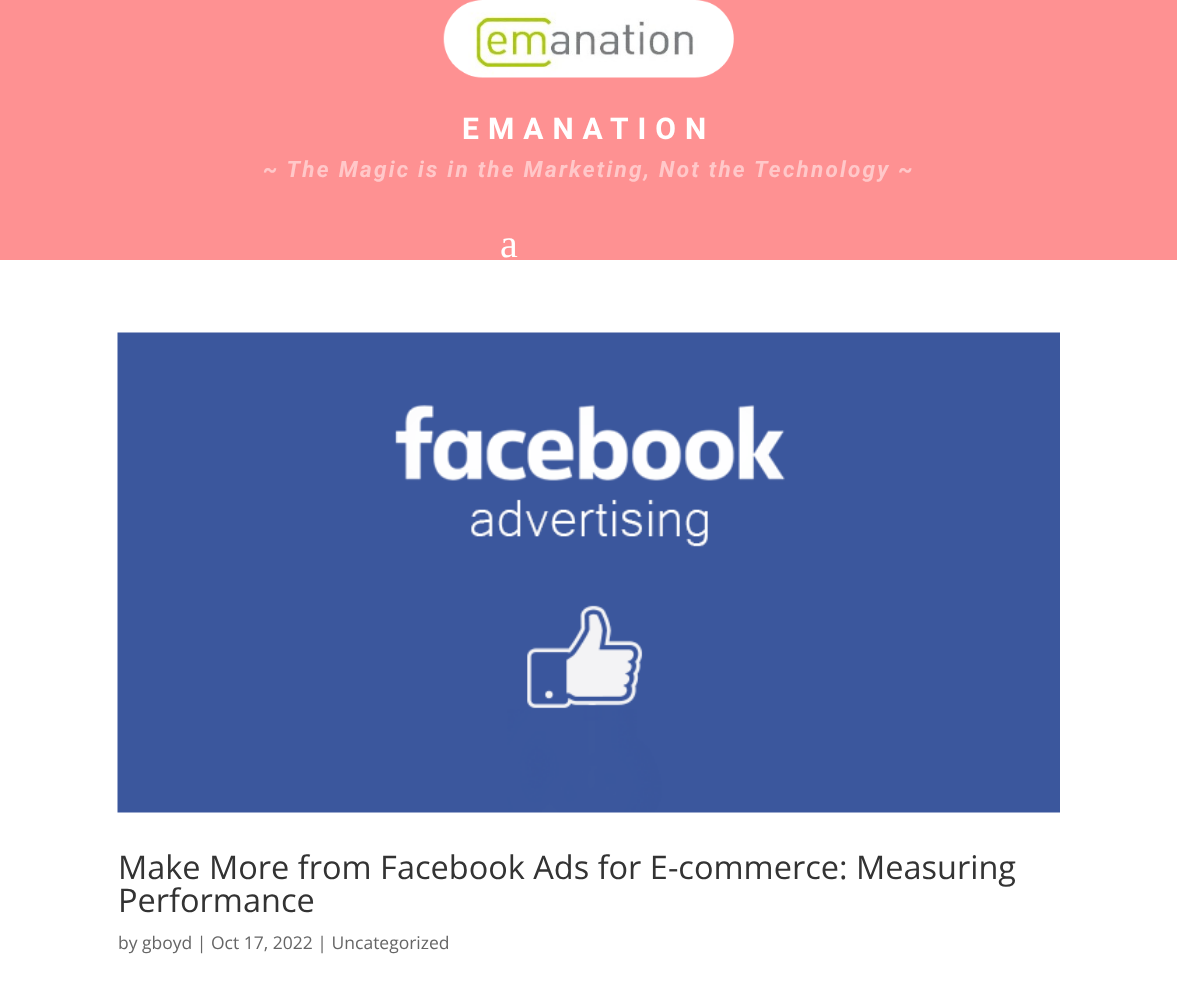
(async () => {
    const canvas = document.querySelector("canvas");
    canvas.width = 1177;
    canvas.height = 998;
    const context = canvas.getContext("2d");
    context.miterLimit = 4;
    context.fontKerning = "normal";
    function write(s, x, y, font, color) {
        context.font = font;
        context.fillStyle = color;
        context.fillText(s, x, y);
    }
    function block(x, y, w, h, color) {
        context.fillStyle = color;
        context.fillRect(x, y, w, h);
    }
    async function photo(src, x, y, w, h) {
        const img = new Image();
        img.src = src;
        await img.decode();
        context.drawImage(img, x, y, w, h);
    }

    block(0, 0, 1177, 998, "rgb(255, 255, 255)");
    block(0, 0, 1177, 260, "rgb(254, 145, 146)");
    await photo("media/1.png", 443, 0, 291, 78);
    context.letterSpacing = "9px";
    write("EMANATION", 462, 139, "bold 30px Heebo", "rgb(255, 255, 255)");
    context.letterSpacing = "2.25px";
    write("~ The Magic is in the Marketing, Not the Technology ~", 263, 177, "italic bold 22.5px Roboto", "rgb(255, 200, 201)");
    context.letterSpacing = "0px";
    write("a", 500, 257, "40px Liberation Serif", "rgb(255, 255, 255)");
    await photo("media/2.png", 117, 332, 943, 481);
    write("Make More from Facebook Ads for E-commerce: Measuring", 118, 879, "32.5px Open Sans", "rgb(51, 51, 51)");
    write("Performance", 118, 912, "32.5px Open Sans", "rgb(51, 51, 51)");
    write("by gboyd | Oct 17, 2022 | Uncategorized", 118, 949, "17.5px Open Sans", "rgb(102, 102, 102)");
})();
